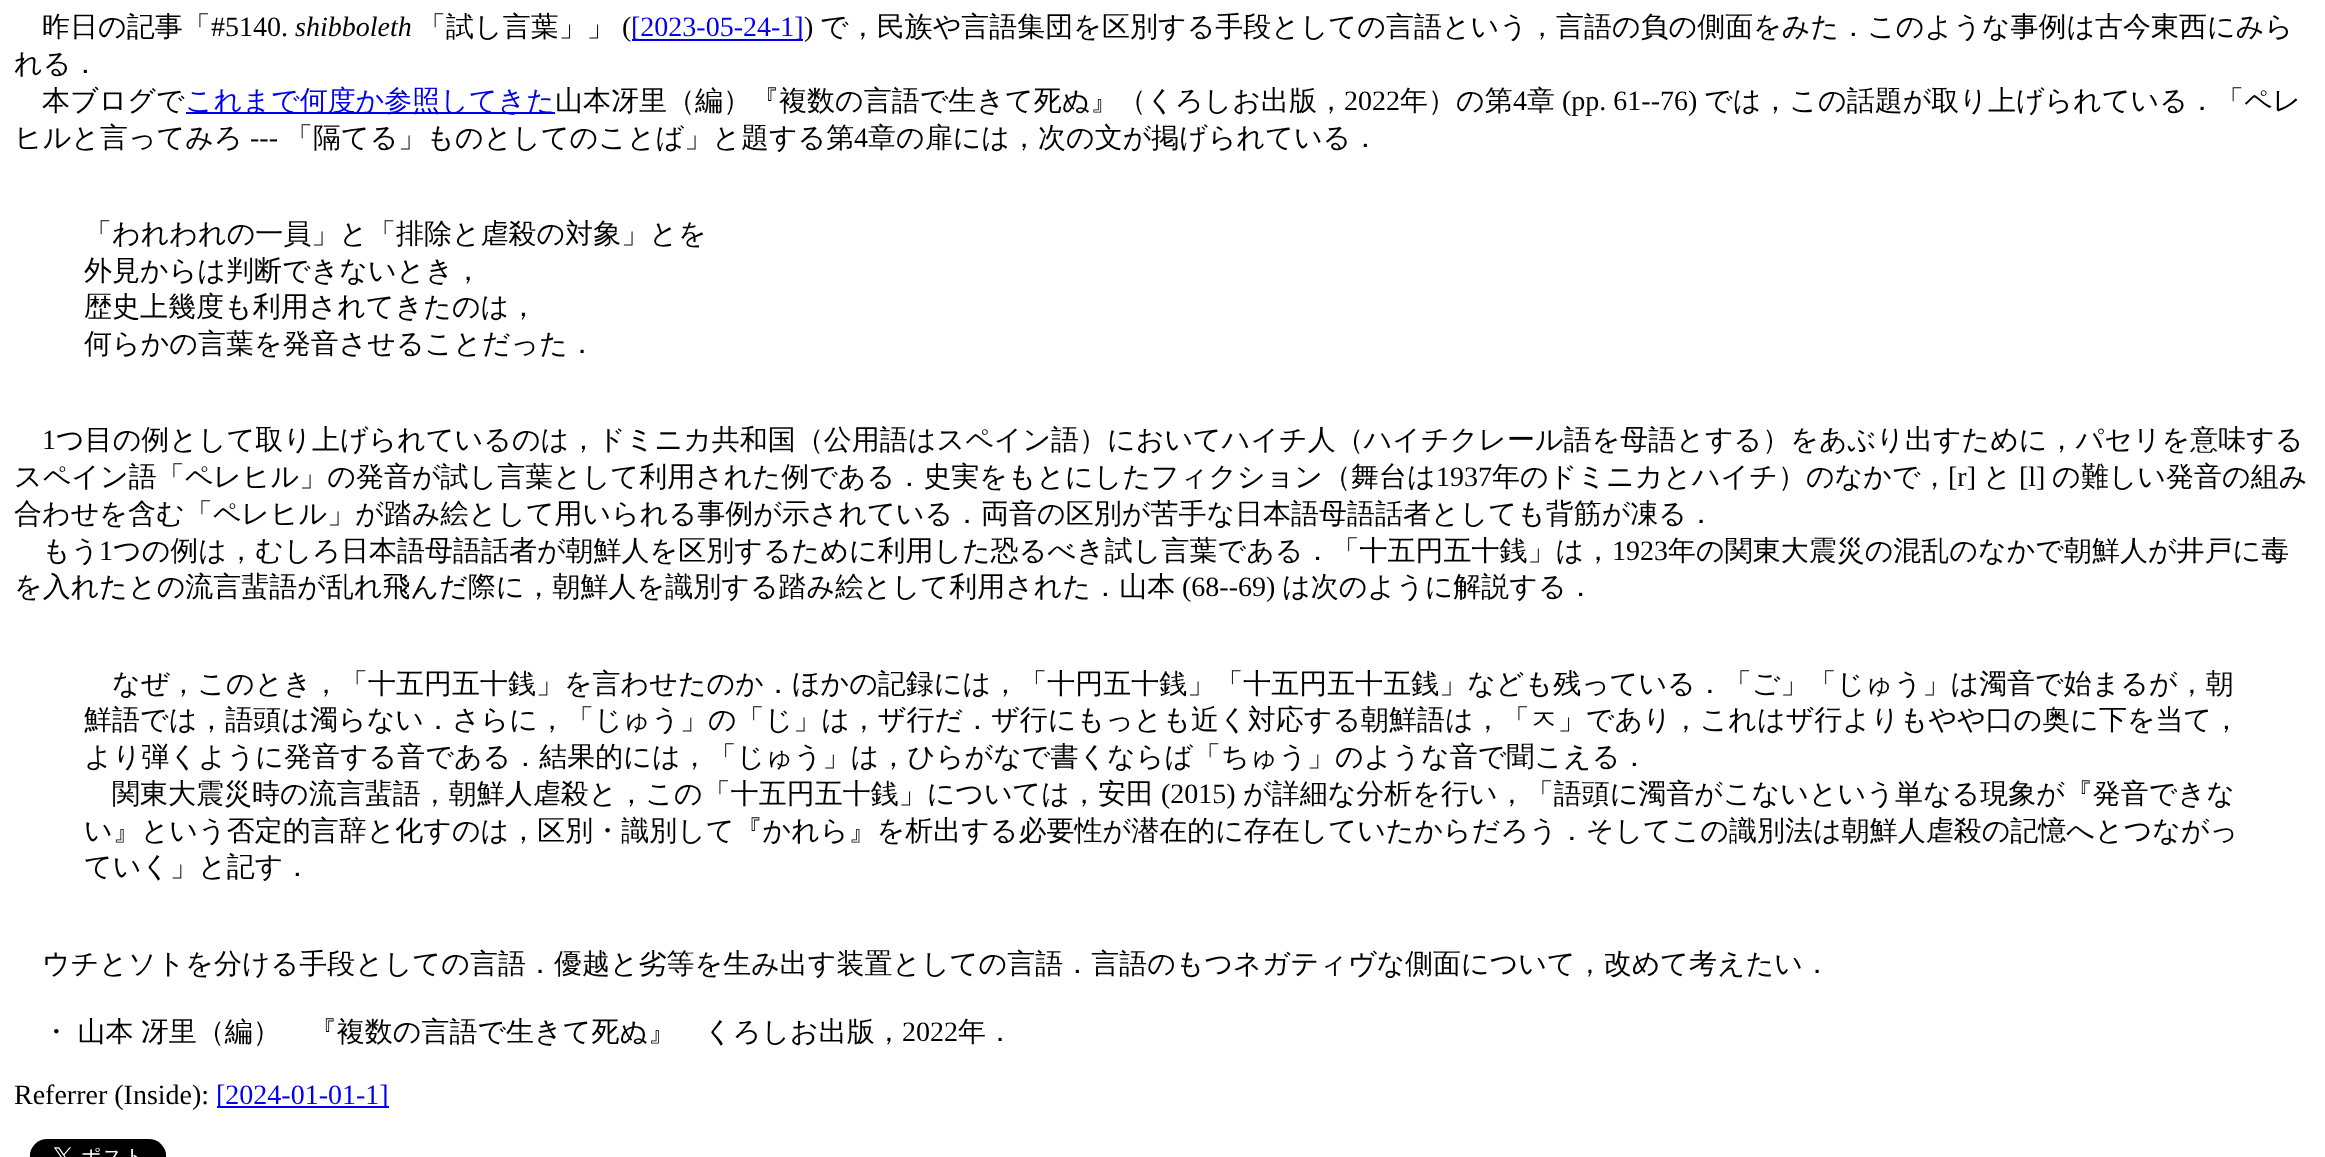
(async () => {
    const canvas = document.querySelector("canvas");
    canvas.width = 2325;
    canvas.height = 1157;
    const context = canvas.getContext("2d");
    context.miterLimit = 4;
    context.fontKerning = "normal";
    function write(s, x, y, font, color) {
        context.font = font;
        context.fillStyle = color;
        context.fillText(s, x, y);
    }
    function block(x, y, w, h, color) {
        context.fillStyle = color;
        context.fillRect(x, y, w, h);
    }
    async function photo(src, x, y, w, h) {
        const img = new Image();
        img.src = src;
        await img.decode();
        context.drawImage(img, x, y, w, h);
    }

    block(0, 0, 2325, 1157, "rgb(255, 255, 255)");
    write("昨日の記事「", 42, 36, "500 28px WenQuanYi Zen Hei", "rgb(0, 0, 0)");
    write("#5140.", 211, 36, "28px Liberation Serif", "rgb(0, 0, 0)");
    write("shibboleth", 295, 36, "italic 28px Liberation Serif", "rgb(0, 0, 0)");
    write("「試し言葉」」", 418, 36, "500 28px WenQuanYi Zen Hei", "rgb(0, 0, 0)");
    write("(", 622, 36, "28px Liberation Serif", "rgb(0, 0, 0)");
    block(632, 39, 171, 2, "rgb(0, 0, 238)");
    write("[2023-05-24-1]", 631, 36, "28px Liberation Serif", "rgb(0, 0, 238)");
    write(")", 804, 36, "28px Liberation Serif", "rgb(0, 0, 0)");
    write("で，民族や言語集団を区別する手段としての言語という，言語の負の側面をみた．このような事例は古今東西にみら", 820, 36, "500 28px WenQuanYi Zen Hei", "rgb(0, 0, 0)");
    write("れる．", 14, 73, "500 28px WenQuanYi Zen Hei", "rgb(0, 0, 0)");
    write("本ブログで", 42, 110, "500 28px WenQuanYi Zen Hei", "rgb(0, 0, 0)");
    block(186, 112, 369, 2, "rgb(0, 0, 238)");
    write("これまで何度か参照してきた", 185, 110, "500 28px WenQuanYi Zen Hei", "rgb(0, 0, 238)");
    write("山本冴里（編）『複数の言語で生きて死ぬ』（くろしお出版，", 555, 110, "500 28px WenQuanYi Zen Hei", "rgb(0, 0, 0)");
    write("2022", 1344, 110, "28px Liberation Serif", "rgb(0, 0, 0)");
    write("年）の第", 1400, 110, "500 28px WenQuanYi Zen Hei", "rgb(0, 0, 0)");
    write("4", 1513, 110, "28px Liberation Serif", "rgb(0, 0, 0)");
    write("章", 1527, 110, "500 28px WenQuanYi Zen Hei", "rgb(0, 0, 0)");
    write("(pp. 61--76)", 1562, 110, "28px Liberation Serif", "rgb(0, 0, 0)");
    write("では，この話題が取り上げられている．「ペレ", 1704, 110, "500 28px WenQuanYi Zen Hei", "rgb(0, 0, 0)");
    write("ヒルと言ってみろ", 14, 147, "500 28px WenQuanYi Zen Hei", "rgb(0, 0, 0)");
    write("---", 250, 147, "28px Liberation Serif", "rgb(0, 0, 0)");
    write("「隔てる」ものとしてのことば」と題する第", 285, 147, "500 28px WenQuanYi Zen Hei", "rgb(0, 0, 0)");
    write("4", 854, 147, "28px Liberation Serif", "rgb(0, 0, 0)");
    write("章の扉には，次の文が掲げられている．", 868, 147, "500 28px WenQuanYi Zen Hei", "rgb(0, 0, 0)");
    write("「われわれの一員」と「排除と虐殺の対象」とを", 84, 243, "500 28px WenQuanYi Zen Hei", "rgb(0, 0, 0)");
    write("外見からは判断できないとき，", 84, 280, "500 28px WenQuanYi Zen Hei", "rgb(0, 0, 0)");
    write("歴史上幾度も利用されてきたのは，", 84, 316, "500 28px WenQuanYi Zen Hei", "rgb(0, 0, 0)");
    write("何らかの言葉を発音させることだった．", 84, 353, "500 28px WenQuanYi Zen Hei", "rgb(0, 0, 0)");
    write("1", 42, 449, "28px Liberation Serif", "rgb(0, 0, 0)");
    write("つ目の例として取り上げられているのは，ドミニカ共和国（公用語はスペイン語）においてハイチ人（ハイチクレール語を母語とする）をあぶり出すために，パセリを意味する", 56, 449, "500 28px WenQuanYi Zen Hei", "rgb(0, 0, 0)");
    write("スペイン語「ペレヒル」の発音が試し言葉として利用された例である．史実をもとにしたフィクション（舞台は", 14, 486, "500 28px WenQuanYi Zen Hei", "rgb(0, 0, 0)");
    write("1937", 1436, 486, "28px Liberation Serif", "rgb(0, 0, 0)");
    write("年のドミニカとハイチ）のなかで，", 1492, 486, "500 28px WenQuanYi Zen Hei", "rgb(0, 0, 0)");
    write("[r]", 1948, 486, "28px Liberation Serif", "rgb(0, 0, 0)");
    write("と", 1983, 486, "500 28px WenQuanYi Zen Hei", "rgb(0, 0, 0)");
    write("[l]", 2019, 486, "28px Liberation Serif", "rgb(0, 0, 0)");
    write("の難しい発音の組み", 2052, 486, "500 28px WenQuanYi Zen Hei", "rgb(0, 0, 0)");
    write("合わせを含む「ペレヒル」が踏み絵として用いられる事例が示されている．両音の区別が苦手な日本語母語話者としても背筋が凍る．", 14, 523, "500 28px WenQuanYi Zen Hei", "rgb(0, 0, 0)");
    write("もう", 42, 560, "500 28px WenQuanYi Zen Hei", "rgb(0, 0, 0)");
    write("1", 99, 560, "28px Liberation Serif", "rgb(0, 0, 0)");
    write("つの例は，むしろ日本語母語話者が朝鮮人を区別するために利用した恐るべき試し言葉である．「十五円五十銭」は，", 113, 560, "500 28px WenQuanYi Zen Hei", "rgb(0, 0, 0)");
    write("1923", 1612, 560, "28px Liberation Serif", "rgb(0, 0, 0)");
    write("年の関東大震災の混乱のなかで朝鮮人が井戸に毒", 1668, 560, "500 28px WenQuanYi Zen Hei", "rgb(0, 0, 0)");
    write("を入れたとの流言蜚語が乱れ飛んだ際に，朝鮮人を識別する踏み絵として利用された．山本", 14, 596, "500 28px WenQuanYi Zen Hei", "rgb(0, 0, 0)");
    write("(68--69)", 1182, 596, "28px Liberation Serif", "rgb(0, 0, 0)");
    write("は次のように解説する．", 1282, 596, "500 28px WenQuanYi Zen Hei", "rgb(0, 0, 0)");
    write("なぜ，このとき，「十五円五十銭」を言わせたのか．ほかの記録には，「十円五十銭」「十五円五十五銭」なども残っている．「ご」「じゅう」は濁音で始まるが，朝", 112, 693, "500 28px WenQuanYi Zen Hei", "rgb(0, 0, 0)");
    write("鮮語では，語頭は濁らない．さらに，「じゅう」の「じ」は，ザ行だ．ザ行にもっとも近く対応する朝鮮語は，「ㅈ」であり，これはザ行よりもやや口の奥に下を当て，", 84, 729, "500 28px WenQuanYi Zen Hei", "rgb(0, 0, 0)");
    write("より弾くように発音する音である．結果的には，「じゅう」は，ひらがなで書くならば「ちゅう」のような音で聞こえる．", 84, 766, "500 28px WenQuanYi Zen Hei", "rgb(0, 0, 0)");
    write("関東大震災時の流言蜚語，朝鮮人虐殺と，この「十五円五十銭」については，安田", 112, 803, "500 28px WenQuanYi Zen Hei", "rgb(0, 0, 0)");
    write("(2015)", 1161, 803, "28px Liberation Serif", "rgb(0, 0, 0)");
    write("が詳細な分析を行い，「語頭に濁音がこないという単なる現象が『発音できな", 1243, 803, "500 28px WenQuanYi Zen Hei", "rgb(0, 0, 0)");
    write("い』という否定的言辞と化すのは，区別・識別して『かれら』を析出する必要性が潜在的に存在していたからだろう．そしてこの識別法は朝鮮人虐殺の記憶へとつながっ", 84, 840, "500 28px WenQuanYi Zen Hei", "rgb(0, 0, 0)");
    write("ていく」と記す．", 84, 876, "500 28px WenQuanYi Zen Hei", "rgb(0, 0, 0)");
    write("ウチとソトを分ける手段としての言語．優越と劣等を生み出す装置としての言語．言語のもつネガティヴな側面について，改めて考えたい．", 42, 973, "500 28px WenQuanYi Zen Hei", "rgb(0, 0, 0)");
    context.wordSpacing = "-1px";
    write("・ 山本 冴里（編）　『複数の言語で生きて死ぬ』　くろしお出版，", 42, 1041, "500 28px WenQuanYi Zen Hei", "rgb(0, 0, 0)");
    context.wordSpacing = "0px";
    write("2022", 902, 1041, "28px Liberation Serif", "rgb(0, 0, 0)");
    write("年．", 958, 1041, "500 28px WenQuanYi Zen Hei", "rgb(0, 0, 0)");
    write("Referrer (Inside):", 14, 1104, "28px Liberation Serif", "rgb(0, 0, 0)");
    block(217, 1106, 172, 2, "rgb(0, 0, 238)");
    write("[2024-01-01-1]", 216, 1104, "28px Liberation Serif", "rgb(0, 0, 238)");
    await photo("media/1.png", 29, 1139, 138, 18);
})();
